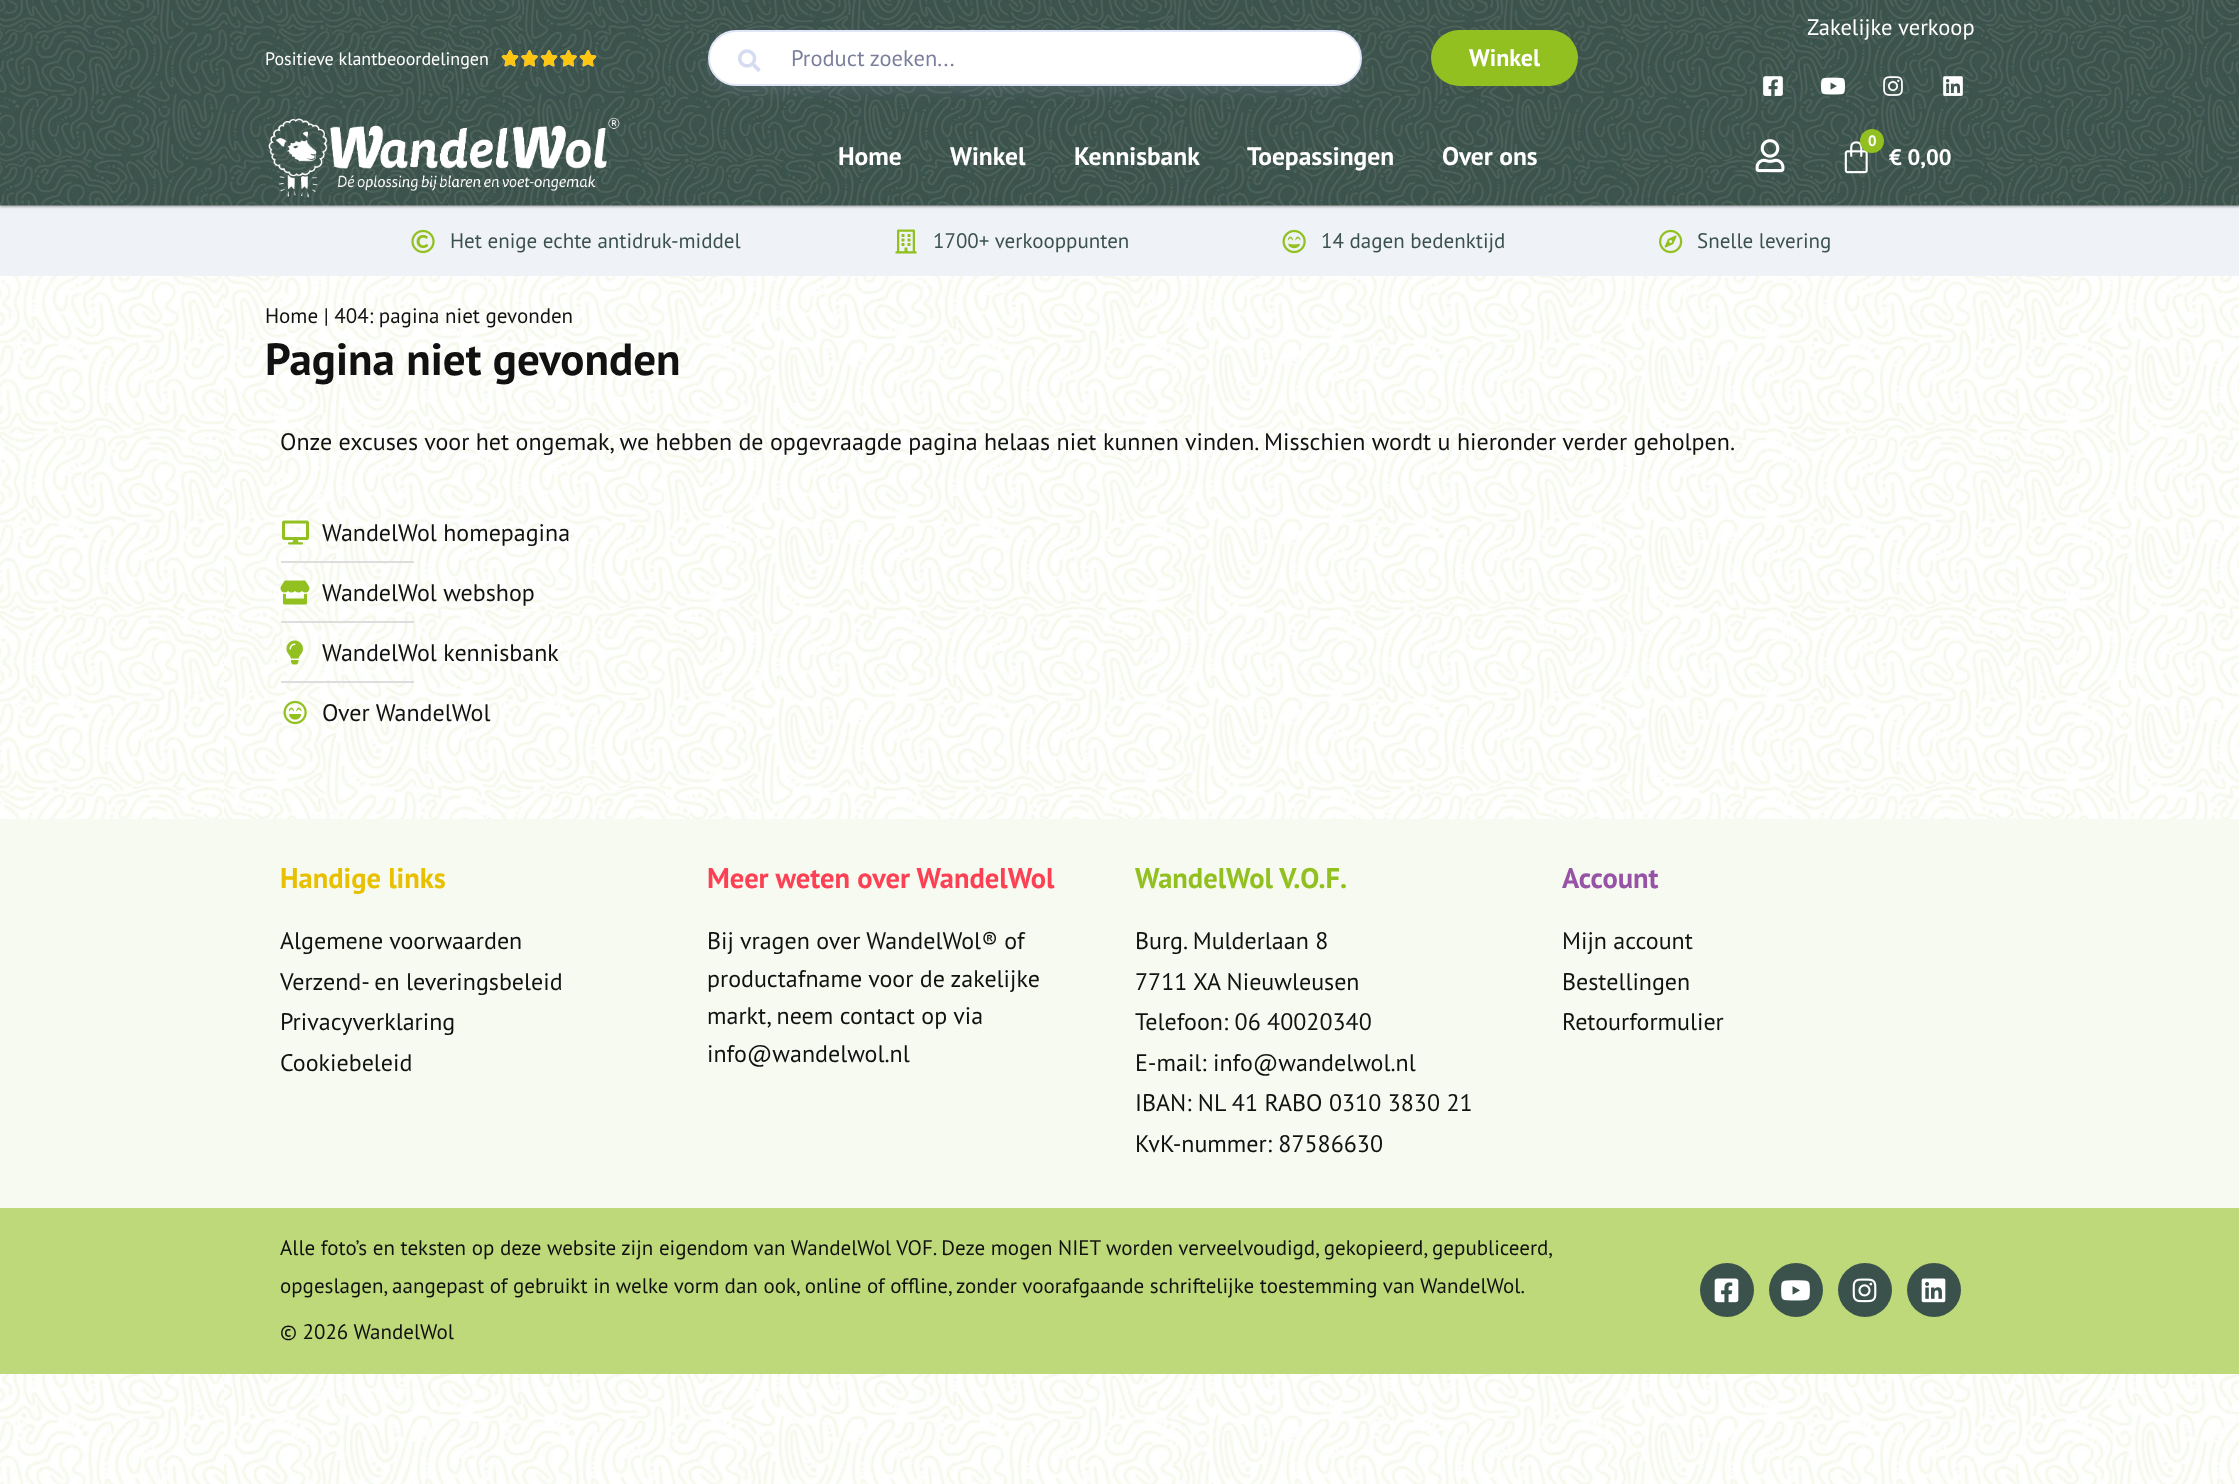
(async () => {
    const canvas = document.querySelector("canvas");
    canvas.width = 2239;
    canvas.height = 1484;
    const context = canvas.getContext("2d");
    context.miterLimit = 4;
    context.fontKerning = "normal";
    function write(s, x, y, font, color) {
        context.font = font;
        context.fillStyle = color;
        context.fillText(s, x, y);
    }
    function block(x, y, w, h, color) {
        context.fillStyle = color;
        context.fillRect(x, y, w, h);
    }
    function card(x, y, w, h, r, color) {
        context.fillStyle = color;
        context.beginPath();
        context.roundRect(x, y, w, h, r);
        context.fill();
    }
    async function photo(src, x, y, w, h) {
        const img = new Image();
        img.src = src;
        await img.decode();
        context.drawImage(img, x, y, w, h);
    }

    block(0, 0, 2239, 1484, "rgb(255, 255, 255)");
    await photo("media/1.png", 0, 205, 2239, 1279);
    await photo("media/2.png", 0, 0, 2239, 108);
    write("Zakelijke verkoop", 1807, 35, "22.5px PT Sans", "rgb(255, 255, 255)");
    await photo("media/3.png", 1763, 76, 20, 20);
    await photo("media/4.png", 1821, 77, 24, 18);
    await photo("media/5.png", 1883, 76, 20, 20);
    await photo("media/6.png", 1943, 76, 20, 20);
    write("Positieve klantbeoordelingen", 265, 65, "18px PT Sans", "rgb(255, 255, 255)");
    await photo("media/7.png", 501, 50, 18, 17);
    await photo("media/8.png", 501, 50, 18, 17);
    await photo("media/9.png", 521, 50, 17, 17);
    await photo("media/10.png", 521, 50, 17, 17);
    await photo("media/11.png", 540, 50, 18, 17);
    await photo("media/12.png", 540, 50, 18, 17);
    await photo("media/13.png", 560, 50, 17, 17);
    await photo("media/14.png", 560, 50, 17, 17);
    await photo("media/15.png", 579, 50, 18, 17);
    await photo("media/16.png", 579, 50, 18, 17);
    context.fillStyle = "rgba(165, 174, 213, 0.15)";
    context.filter = "blur(6px)";
    context.beginPath();
    context.roundRect(708, 36, 654, 56, 28);
    context.fill();
    context.filter = "none";
    context.fillStyle = "rgb(255, 255, 255)";
    context.beginPath();
    context.roundRect(709, 31, 652, 54, 27);
    context.fill();
    context.strokeStyle = "rgb(224, 229, 248)";
    context.lineWidth = 2;
    context.stroke();
    await photo("media/17.png", 738, 49, 23, 23);
    write("Product zoeken...", 791, 66, "22.5px PT Sans", "rgb(123, 127, 156)");
    card(1431, 30, 147, 56, 28, "rgb(146, 192, 32)");
    write("Winkel", 1469, 66, "bold 24px PT Sans", "rgb(255, 255, 255)");
    block(0, 206, 2239, 70, "rgb(239, 242, 247)");
    context.fillStyle = "rgba(0, 0, 0, 0.3)";
    context.filter = "blur(1px)";
    context.beginPath();
    context.rect(0, 110, 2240, 97);
    context.fill();
    context.filter = "none";
    await photo("media/18.png", 0, 108, 2239, 98);
    await photo("media/19.png", 268, 117, 352, 81);
    write("Home", 838, 165, "bold 25.5px PT Sans", "rgb(255, 255, 255)");
    write("Winkel", 950, 165, "bold 25.5px PT Sans", "rgb(255, 255, 255)");
    write("Kennisbank", 1074, 165, "bold 25.5px PT Sans", "rgb(255, 255, 255)");
    write("Toepassingen", 1247, 165, "bold 25.5px PT Sans", "rgb(255, 255, 255)");
    write("Over ons", 1442, 165, "bold 25.5px PT Sans", "rgb(255, 255, 255)");
    await photo("media/20.png", 1755, 139, 30, 34);
    await photo("media/21.png", 1844, 141, 24, 33);
    context.fillStyle = "rgb(146, 192, 32)";
    context.beginPath();
    context.arc(1872, 141, 12, 0, Math.PI * 2);
    context.fill();
    write("0", 1868, 146, "bold 15px PT Sans", "rgb(255, 255, 255)");
    write("€ 0,00", 1889, 165, "bold 22.5px PT Sans", "rgb(255, 255, 255)");
    await photo("media/22.png", 411, 229, 24, 25);
    write("Het enige echte antidruk-middel", 450, 248, "21px PT Sans", "rgb(59, 82, 76)");
    await photo("media/23.png", 895, 229, 22, 25);
    write("1700+ verkooppunten", 933, 248, "21px PT Sans", "rgb(59, 82, 76)");
    await photo("media/24.png", 1282, 229, 24, 25);
    write("14 dagen bedenktijd", 1321, 248, "21px PT Sans", "rgb(59, 82, 76)");
    await photo("media/25.png", 1659, 229, 24, 25);
    write("Snelle levering", 1697, 248, "21px PT Sans", "rgb(59, 82, 76)");
    write("Home | 404: pagina niet gevonden", 265, 323, "21px PT Sans", "rgb(17, 17, 17)");
    write("Pagina niet gevonden", 265, 375, "bold 45px PT Sans", "rgb(17, 17, 17)");
    write("Onze excuses voor het ongemak, we hebben de opgevraagde pagina helaas niet kunnen vinden. Misschien wordt u hieronder verder geholpen.", 280, 450, "24px PT Sans", "rgb(17, 17, 17)");
    await photo("media/26.png", 282, 520, 27, 25);
    write("WandelWol homepagina", 322, 541, "24px PT Sans", "rgb(17, 17, 17)");
    block(281, 561, 133, 2, "rgb(221, 221, 221)");
    await photo("media/27.png", 280, 580, 30, 25);
    write("WandelWol webshop", 322, 601, "24px PT Sans", "rgb(17, 17, 17)");
    block(281, 621, 133, 2, "rgb(221, 221, 221)");
    await photo("media/28.png", 286, 640, 17, 25);
    write("WandelWol kennisbank", 322, 661, "24px PT Sans", "rgb(17, 17, 17)");
    block(281, 681, 133, 2, "rgb(221, 221, 221)");
    await photo("media/29.png", 283, 700, 24, 25);
    write("Over WandelWol", 322, 721, "24px PT Sans", "rgb(17, 17, 17)");
    block(0, 819, 2239, 389, "rgb(246, 250, 240)");
    write("Handige links", 280, 888, "bold 28.5px PT Sans", "rgb(232, 192, 0)");
    write("Algemene voorwaarden", 280, 949, "24px PT Sans", "rgb(17, 17, 17)");
    write("Verzend- en leveringsbeleid", 280, 990, "24px PT Sans", "rgb(17, 17, 17)");
    write("Privacyverklaring", 280, 1030, "24px PT Sans", "rgb(17, 17, 17)");
    write("Cookiebeleid", 280, 1071, "24px PT Sans", "rgb(17, 17, 17)");
    write("Meer weten over WandelWol", 707, 888, "bold 28.5px PT Sans", "rgb(253, 64, 84)");
    write("Bij vragen over WandelWol® of", 707, 949, "24px PT Sans", "rgb(17, 17, 17)");
    write("productafname voor de zakelijke", 707, 987, "24px PT Sans", "rgb(17, 17, 17)");
    write("markt, neem contact op via", 707, 1024, "24px PT Sans", "rgb(17, 17, 17)");
    write("info@wandelwol.nl", 707, 1062, "24px PT Sans", "rgb(17, 17, 17)");
    write("WandelWol V.O.F.", 1135, 888, "bold 28.5px PT Sans", "rgb(146, 192, 32)");
    write("Burg. Mulderlaan 8", 1135, 949, "24px PT Sans", "rgb(17, 17, 17)");
    write("7711 XA Nieuwleusen", 1135, 990, "24px PT Sans", "rgb(17, 17, 17)");
    write("Telefoon: 06 40020340", 1135, 1030, "24px PT Sans", "rgb(17, 17, 17)");
    write("E-mail: info@wandelwol.nl", 1135, 1071, "24px PT Sans", "rgb(17, 17, 17)");
    write("IBAN: NL 41 RABO 0310 3830 21", 1135, 1111, "24px PT Sans", "rgb(17, 17, 17)");
    write("KvK-nummer: 87586630", 1135, 1152, "24px PT Sans", "rgb(17, 17, 17)");
    write("Account", 1562, 888, "bold 28.5px PT Sans", "rgb(151, 83, 166)");
    write("Mijn account", 1562, 949, "24px PT Sans", "rgb(17, 17, 17)");
    write("Bestellingen", 1562, 990, "24px PT Sans", "rgb(17, 17, 17)");
    write("Retourformulier", 1562, 1030, "24px PT Sans", "rgb(17, 17, 17)");
    block(0, 1208, 2239, 166, "rgb(190, 217, 121)");
    write("Alle foto’s en teksten op deze website zijn eigendom van WandelWol VOF. Deze mogen NIET worden verveelvoudigd, gekopieerd, gepubliceerd,", 280, 1255, "21px PT Sans", "rgb(17, 17, 17)");
    write("opgeslagen, aangepast of gebruikt in welke vorm dan ook, online of offline, zonder voorafgaande schriftelijke toestemming van WandelWol.", 280, 1293, "21px PT Sans", "rgb(17, 17, 17)");
    write("© 2026 WandelWol", 280, 1339, "21px PT Sans", "rgb(17, 17, 17)");
    context.fillStyle = "rgb(59, 82, 76)";
    context.beginPath();
    context.arc(1727, 1290, 27, 0, Math.PI * 2);
    context.fill();
    await photo("media/30.png", 1714, 1278, 25, 25);
    context.beginPath();
    context.arc(1796, 1290, 27, 0, Math.PI * 2);
    context.fill();
    await photo("media/31.png", 1781, 1280, 29, 21);
    context.beginPath();
    context.arc(1865, 1290, 27, 0, Math.PI * 2);
    context.fill();
    await photo("media/32.png", 1852, 1278, 25, 25);
    context.beginPath();
    context.arc(1934, 1290, 27, 0, Math.PI * 2);
    context.fill();
    await photo("media/33.png", 1921, 1278, 25, 25);
})();
